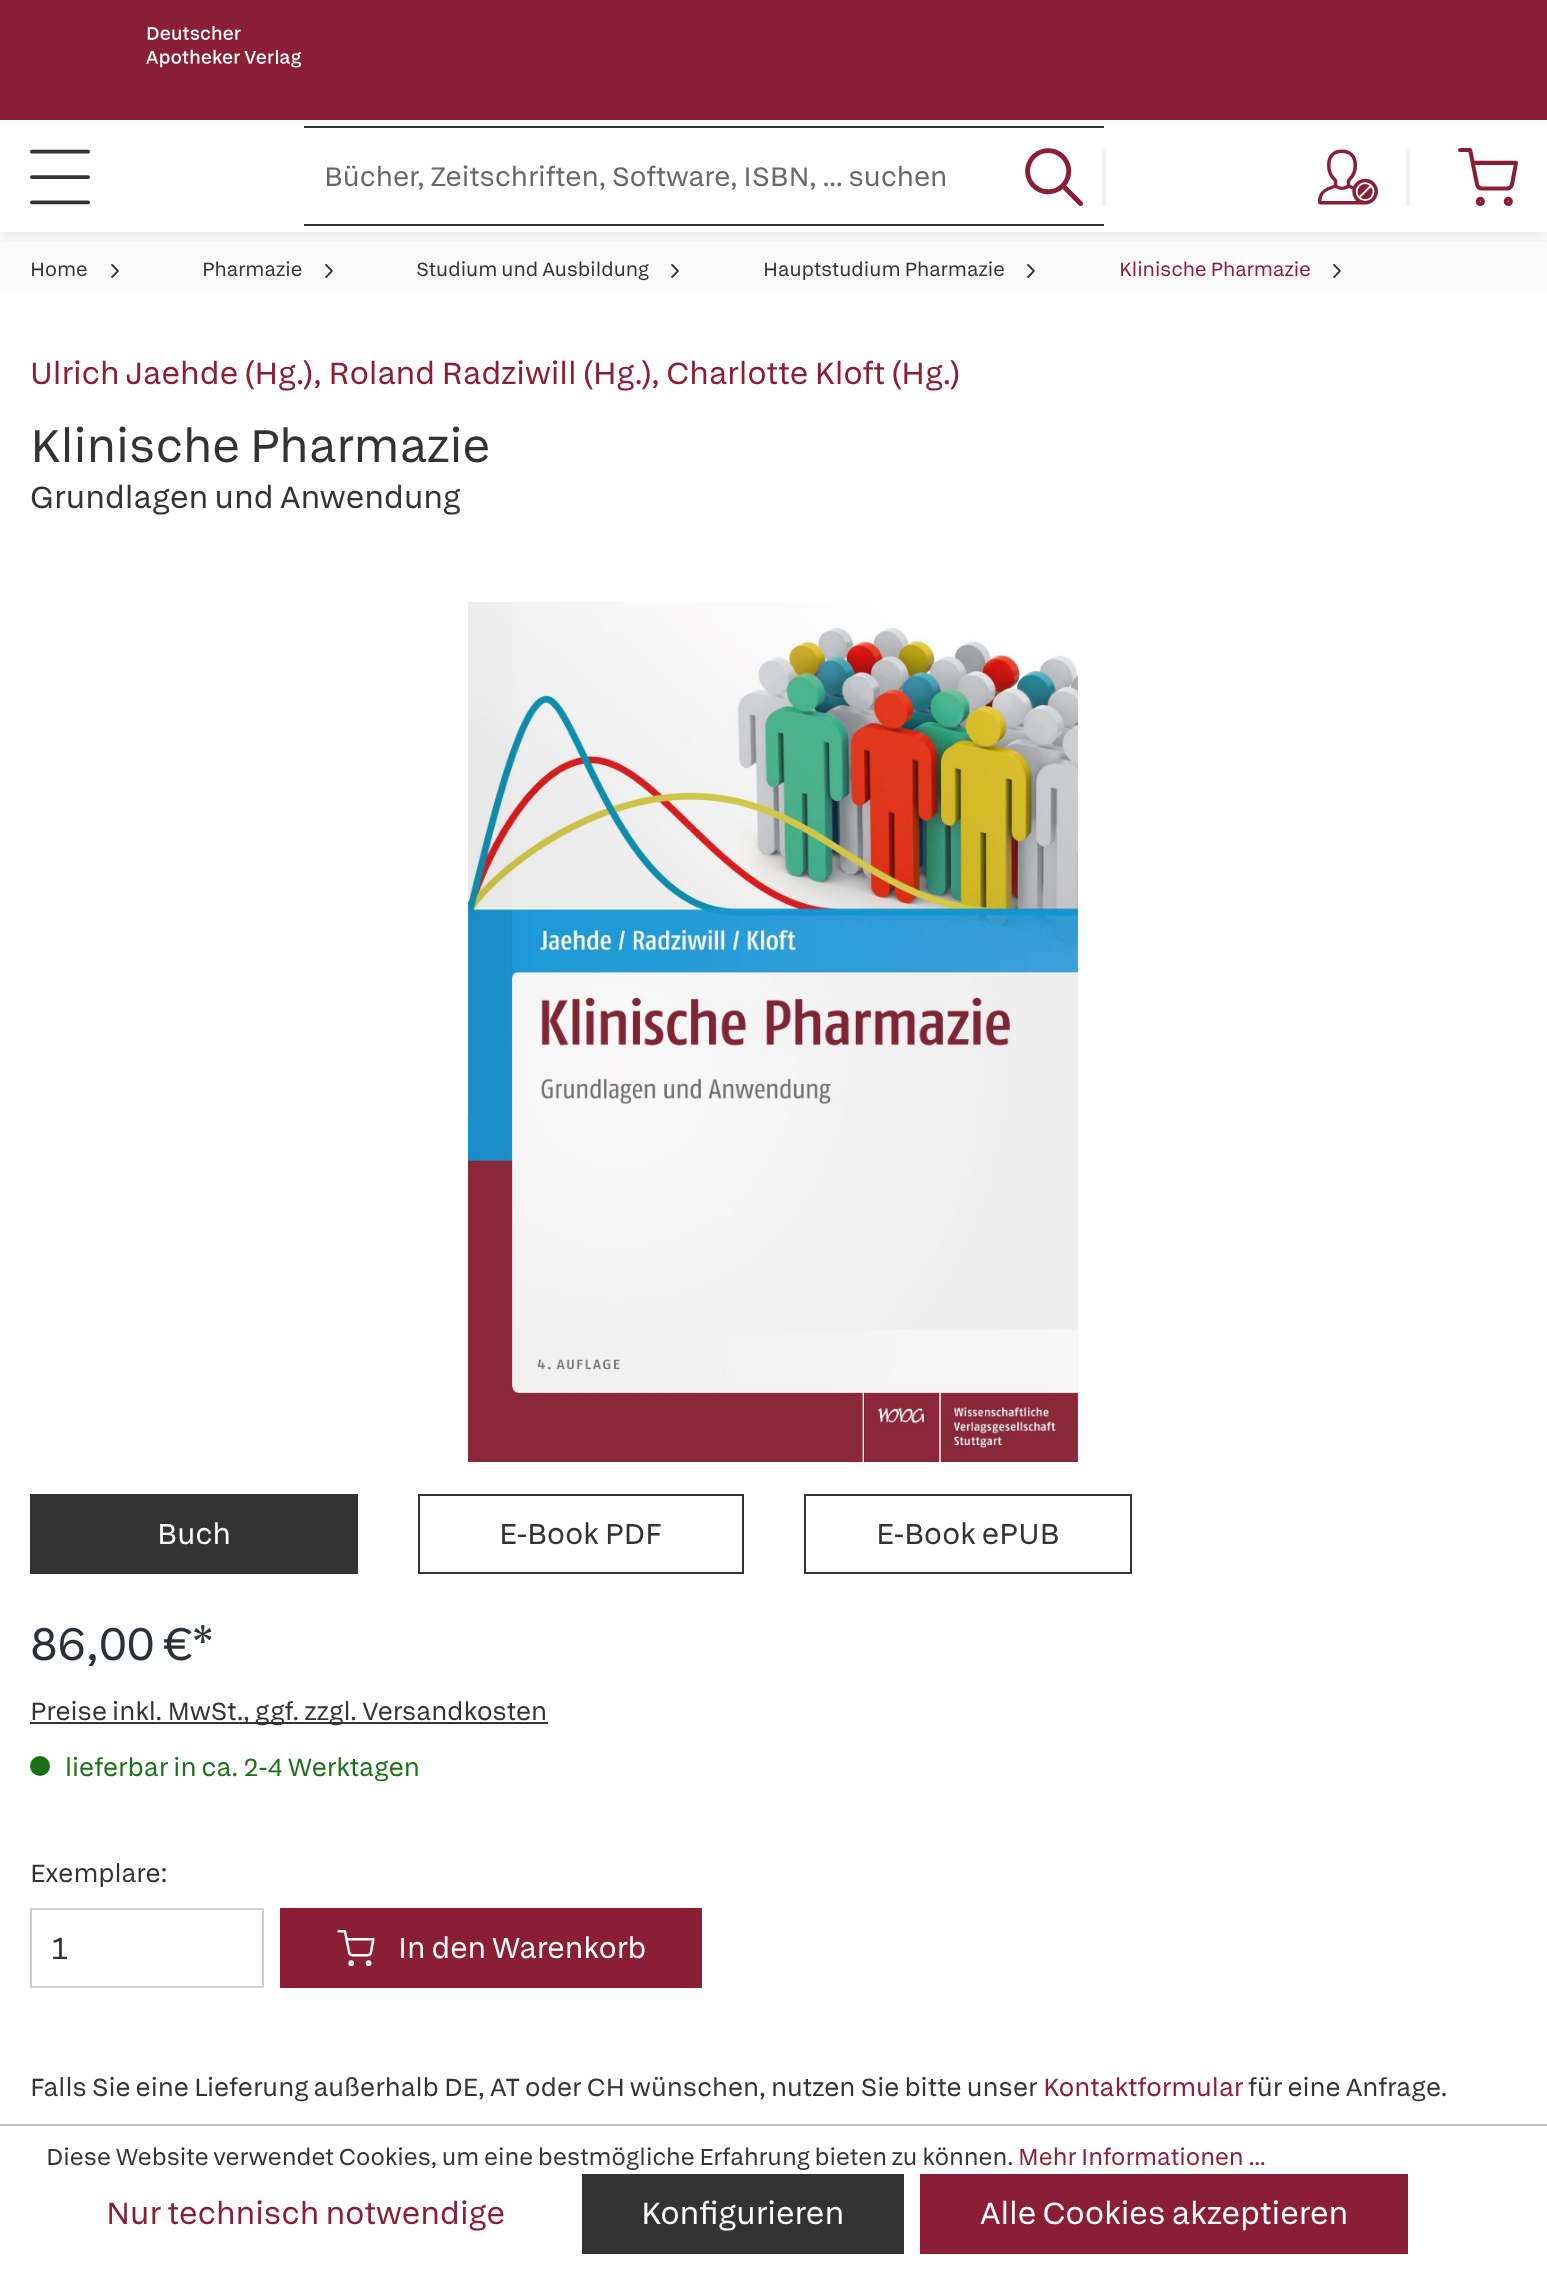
(async () => {
    const canvas = document.querySelector("canvas");
    canvas.width = 1547;
    canvas.height = 2269;
    const context = canvas.getContext("2d");
    context.miterLimit = 4;
    context.fontKerning = "normal";
    function write(s, x, y, font, color) {
        context.font = font;
        context.fillStyle = color;
        context.fillText(s, x, y);
    }
    function block(x, y, w, h, color) {
        context.fillStyle = color;
        context.fillRect(x, y, w, h);
    }
    async function photo(src, x, y, w, h) {
        const img = new Image();
        img.src = src;
        await img.decode();
        context.drawImage(img, x, y, w, h);
    }

    block(0, 0, 1547, 2269, "rgb(255, 255, 255)");
    block(0, 240, 1547, 50, "rgb(249, 249, 249)");
    context.save();
    context.beginPath();
    context.rect(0, 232, 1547, 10);
    context.clip();
    context.fillStyle = "rgba(0, 0, 0, 0.08)";
    context.filter = "blur(6px)";
    context.beginPath();
    context.rect(0, 6, 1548, 232);
    context.fill();
    context.filter = "none";
    context.restore();
    block(0, 0, 1547, 120, "rgb(137, 30, 53)");
    await photo("media/1.png", 146, 25, 155, 43);
    await photo("media/2.png", 30, 149, 60, 56);
    block(304, 126, 800, 2, "rgb(51, 51, 51)");
    block(304, 224, 800, 2, "rgb(51, 51, 51)");
    write("Bücher, Zeitschriften, Software, ISBN, ... suchen", 324, 186, "28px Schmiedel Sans", "rgb(103, 103, 103)");
    await photo("media/3.png", 1025, 148, 59, 58);
    block(1102, 148, 4, 58, "rgb(242, 242, 242)");
    await photo("media/4.png", 1318, 149, 60, 56);
    block(1406, 148, 4, 58, "rgb(242, 242, 242)");
    await photo("media/5.png", 1458, 148, 60, 58);
    write("Home", 30, 276, "20px Schmiedel Sans", "rgb(51, 51, 51)");
    await photo("media/6.png", 111, 264, 8, 14);
    write("Pharmazie", 202, 276, "20px Schmiedel Sans", "rgb(51, 51, 51)");
    await photo("media/6.png", 325, 264, 8, 14);
    write("Studium und Ausbildung", 416, 276, "20px Schmiedel Sans", "rgb(51, 51, 51)");
    await photo("media/6.png", 671, 264, 8, 14);
    write("Hauptstudium Pharmazie", 763, 276, "20px Schmiedel Sans", "rgb(51, 51, 51)");
    await photo("media/6.png", 1027, 264, 8, 14);
    write("Klinische Pharmazie", 1119, 276, "20px Schmiedel Sans", "rgb(137, 30, 53)");
    await photo("media/6.png", 1333, 264, 8, 14);
    write("Ulrich Jaehde (Hg.)", 30, 384, "32px Schmiedel Sans", "rgb(137, 30, 53)");
    write(", Roland Radziwill (Hg.)", 313, 384, "32px Schmiedel Sans", "rgb(137, 30, 53)");
    write(", Charlotte Kloft (Hg.)", 651, 384, "32px Schmiedel Sans", "rgb(137, 30, 53)");
    write("Klinische Pharmazie", 30, 462, "48px Schmiedel Sans", "rgb(51, 51, 51)");
    write("Grundlagen und Anwendung", 30, 508, "32px Schmiedel Sans", "rgb(51, 51, 51)");
    await photo("media/7.png", 468, 602, 610, 860);
    block(30, 1494, 328, 80, "rgb(51, 51, 51)");
    write("Buch", 157, 1544, "30px Schmiedel Sans", "rgb(255, 255, 255)");
    context.strokeStyle = "rgb(51, 51, 51)";
    context.lineWidth = 2;
    context.strokeRect(419, 1495, 324, 78);
    write("E-Book PDF", 499, 1544, "30px Schmiedel Sans", "rgb(51, 51, 51)");
    context.strokeRect(805, 1495, 326, 78);
    write("E-Book ePUB", 876, 1544, "30px Schmiedel Sans", "rgb(51, 51, 51)");
    write("86,00 €*", 30, 1660, "48px Schmiedel Sans", "rgb(43, 49, 54)");
    block(30, 1722, 518, 2, "rgb(51, 51, 51)");
    write("Preise inkl. MwSt., ggf. zzgl. Versandkosten", 30, 1720, "26px Schmiedel Sans", "rgb(51, 51, 51)");
    context.fillStyle = "rgb(25, 112, 22)";
    context.beginPath();
    context.arc(40, 1766, 10, 0, Math.PI * 2);
    context.fill();
    write("lieferbar in ca. 2-4 Werktagen", 65, 1776, "26px Schmiedel Sans", "rgb(25, 112, 22)");
    write("Exemplare:", 30, 1882, "26px Schmiedel Sans", "rgb(51, 51, 51)");
    context.strokeStyle = "rgb(208, 208, 208)";
    context.strokeRect(31, 1909, 232, 78);
    write("1", 50, 1959, "32px Schmiedel Sans", "rgb(51, 51, 51)");
    block(280, 1908, 422, 80, "rgb(137, 30, 53)");
    await photo("media/8.png", 337, 1930, 38, 36);
    write("In den Warenkorb", 398, 1958, "30px Schmiedel Sans", "rgb(255, 255, 255)");
    write("Falls Sie eine Lieferung außerhalb DE, AT oder CH wünschen, nutzen Sie bitte unser", 30, 2096, "26px Schmiedel Sans", "rgb(51, 51, 51)");
    write("Kontaktformular", 1043, 2096, "26px Schmiedel Sans", "rgb(137, 30, 53)");
    write("für eine Anfrage.", 1248, 2096, "26px Schmiedel Sans", "rgb(51, 51, 51)");
    block(0, 2124, 1547, 2, "rgb(188, 193, 199)");
    write("Diese Website verwendet Cookies, um eine bestmögliche Erfahrung bieten zu können.", 46, 2165, "24px Schmiedel Sans", "rgb(51, 51, 51)");
    write("Mehr Informationen ...", 1018, 2165, "24px Schmiedel Sans", "rgb(137, 30, 53)");
    write("Nur technisch notwendige", 106, 2224, "32px Schmiedel Sans", "rgb(137, 30, 53)");
    block(582, 2174, 322, 80, "rgb(51, 51, 51)");
    write("Konfigurieren", 641, 2224, "32px Schmiedel Sans", "rgb(255, 255, 255)");
    block(920, 2174, 488, 80, "rgb(137, 30, 53)");
    write("Alle Cookies akzeptieren", 980, 2224, "32px Schmiedel Sans", "rgb(255, 255, 255)");
})();
